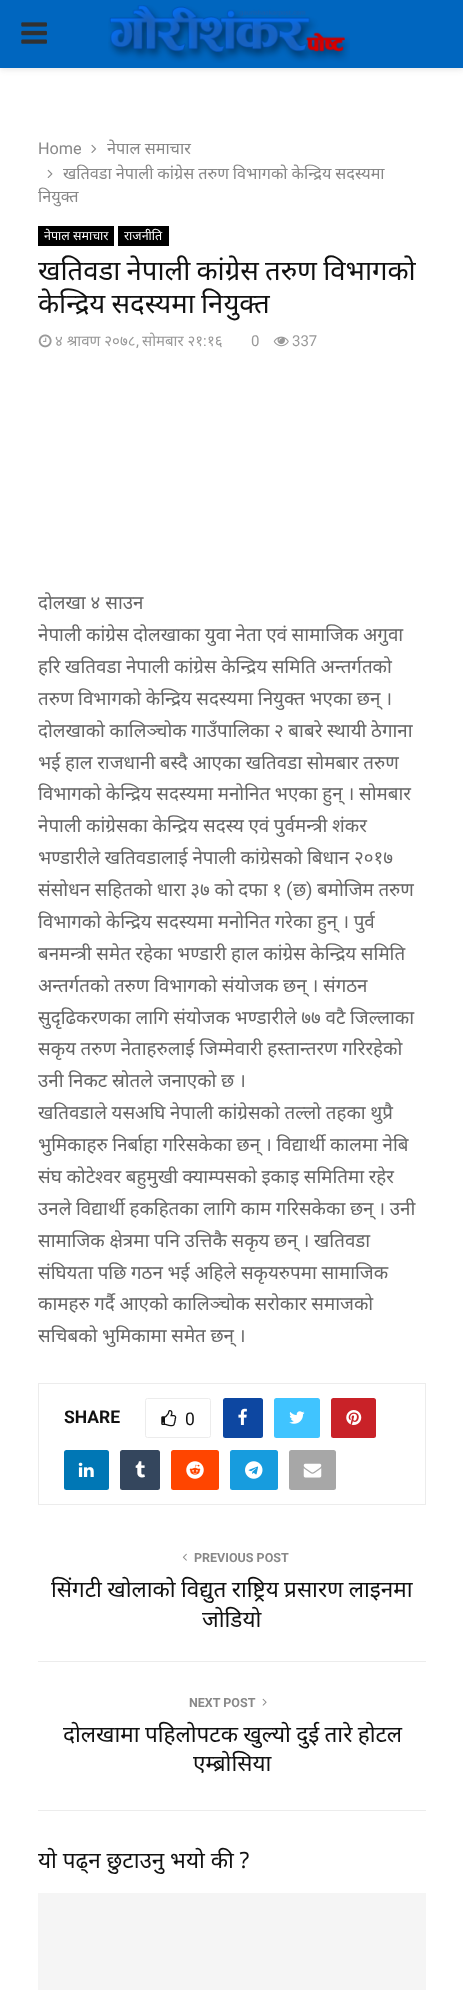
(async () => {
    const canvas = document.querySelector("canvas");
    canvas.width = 463;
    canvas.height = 1990;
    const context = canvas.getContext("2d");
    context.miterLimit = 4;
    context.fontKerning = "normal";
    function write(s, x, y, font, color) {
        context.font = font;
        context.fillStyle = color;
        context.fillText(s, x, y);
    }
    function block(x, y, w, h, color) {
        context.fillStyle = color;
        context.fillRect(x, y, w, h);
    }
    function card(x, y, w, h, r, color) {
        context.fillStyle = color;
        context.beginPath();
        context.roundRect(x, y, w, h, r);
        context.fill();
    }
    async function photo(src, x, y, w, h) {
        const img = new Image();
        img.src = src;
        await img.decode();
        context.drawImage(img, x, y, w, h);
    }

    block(0, 0, 463, 1990, "rgb(255, 255, 255)");
    context.fillStyle = "rgba(190, 190, 190, 0.46)";
    context.filter = "blur(3px)";
    context.beginPath();
    context.rect(0, 1, 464, 68);
    context.fill();
    context.filter = "none";
    block(0, 0, 463, 68, "rgb(0, 102, 191)");
    await photo("media/1.png", 21, 22, 26, 22);
    await photo("media/2.png", 108, 5, 242, 58);
    write("Home", 38, 154, "16.25px Roboto", "rgb(136, 136, 136)");
    await photo("media/3.png", 91, 144, 6, 9);
    write("नेपाल समाचार", 107, 154, "16.25px Noto Sans", "rgb(136, 136, 136)");
    await photo("media/4.png", 47, 169, 6, 9);
    context.wordSpacing = "-0.25px";
    write("खतिवडा नेपाली कांग्रेस तरुण विभागको केन्द्रिय सदस्यमा", 63, 179, "16.25px Noto Sans", "rgb(136, 136, 136)");
    context.wordSpacing = "0px";
    write("नियुक्त", 38, 202, "16.25px Noto Sans", "rgb(136, 136, 136)");
    block(38, 226, 76, 20, "rgb(0, 0, 0)");
    write("नेपाल समाचार", 44, 240, "12.5px Noto Sans", "rgb(255, 255, 255)");
    block(118, 226, 51, 20, "rgb(0, 0, 0)");
    write("राजनीति", 124, 240, "12.5px Noto Sans", "rgb(255, 255, 255)");
    context.wordSpacing = "-1px";
    write("खतिवडा नेपाली कांग्रेस तरुण विभागको", 38, 280, "27.5px Noto Sans", "rgb(17, 17, 17)");
    write("केन्द्रिय सदस्यमा नियुक्त", 38, 313, "27.5px Noto Sans", "rgb(17, 17, 17)");
    await photo("media/5.png", 38, 334, 14, 14);
    context.wordSpacing = "0px";
    write("४ श्रावण २०७८", 55, 346, "15px Noto Sans", "rgb(153, 153, 153)");
    write(",", 136, 346, "15px Roboto", "rgb(153, 153, 153)");
    write("सोमबार २१", 142, 346, "15px Noto Sans", "rgb(153, 153, 153)");
    write(":", 203, 346, "15px Roboto", "rgb(153, 153, 153)");
    write("१६", 207, 346, "15px Noto Sans", "rgb(153, 153, 153)");
    write("0", 251, 346, "15px Roboto", "rgb(153, 153, 153)");
    await photo("media/6.png", 273, 336, 16, 11);
    write("337", 292, 346, "15px Roboto", "rgb(153, 153, 153)");
    write("दोलखा ४ साउन", 38, 609, "18.75px Noto Sans", "rgb(102, 102, 102)");
    context.wordSpacing = "-0.25px";
    write("नेपाली कांग्रेस दोलखाका युवा नेता एवं सामाजिक अगुवा", 38, 641, "18.75px Noto Sans", "rgb(102, 102, 102)");
    write("हरि खतिवडा नेपाली कांग्रेस केन्द्रिय समिति अन्तर्गतको", 38, 673, "18.75px Noto Sans", "rgb(102, 102, 102)");
    write("तरुण विभागको केन्द्रिय सदस्यमा नियुक्त भएका छन् ।", 38, 705, "18.75px Noto Sans", "rgb(102, 102, 102)");
    write("दोलखाको कालिञ्चोक गाउँपालिका २ बाबरे स्थायी ठेगाना", 38, 737, "18.75px Noto Sans", "rgb(102, 102, 102)");
    write("भई हाल राजधानी बस्दै आएका खतिवडा सोमबार तरुण", 38, 769, "18.75px Noto Sans", "rgb(102, 102, 102)");
    write("विभागको केन्द्रिय सदस्यमा मनोनित भएका हुन् । सोमबार", 38, 800, "18.75px Noto Sans", "rgb(102, 102, 102)");
    write("नेपाली कांग्रेसका केन्द्रिय सदस्य एवं पुर्वमन्त्री शंकर", 38, 832, "18.75px Noto Sans", "rgb(102, 102, 102)");
    write("भण्डारीले खतिवडालाई नेपाली कांग्रेसको बिधान २०१७", 38, 864, "18.75px Noto Sans", "rgb(102, 102, 102)");
    write("संसोधन सहितको धारा ३७ को दफा १", 38, 896, "18.75px Noto Sans", "rgb(102, 102, 102)");
    context.wordSpacing = "0px";
    write("(", 286, 896, "18.75px Roboto", "rgb(102, 102, 102)");
    write("छ", 293, 896, "18.75px Noto Sans", "rgb(102, 102, 102)");
    write(")", 306, 896, "18.75px Roboto", "rgb(102, 102, 102)");
    context.wordSpacing = "-0.25px";
    write("बमोजिम तरुण", 317, 896, "18.75px Noto Sans", "rgb(102, 102, 102)");
    write("विभागको केन्द्रिय सदस्यमा मनोनित गरेका हुन् । पुर्व", 38, 928, "18.75px Noto Sans", "rgb(102, 102, 102)");
    write("बनमन्त्री समेत रहेका भण्डारी हाल कांग्रेस केन्द्रिय समिति", 38, 960, "18.75px Noto Sans", "rgb(102, 102, 102)");
    write("अन्तर्गतको तरुण विभागको संयोजक छन् । संगठन", 38, 992, "18.75px Noto Sans", "rgb(102, 102, 102)");
    write("सुदृढिकरणका लागि संयोजक भण्डारीले ७७ वटै जिल्लाका", 38, 1024, "18.75px Noto Sans", "rgb(102, 102, 102)");
    write("सकृय तरुण नेताहरुलाई जिम्मेवारी हस्तान्तरण गरिरहेको", 38, 1055, "18.75px Noto Sans", "rgb(102, 102, 102)");
    write("उनी निकट स्रोतले जनाएको छ ।", 38, 1087, "18.75px Noto Sans", "rgb(102, 102, 102)");
    write("खतिवडाले यसअघि नेपाली कांग्रेसको तल्लो तहका थुप्रै", 38, 1119, "18.75px Noto Sans", "rgb(102, 102, 102)");
    write("भुमिकाहरु निर्बाहा गरिसकेका छन् । विद्यार्थी कालमा नेबि", 38, 1151, "18.75px Noto Sans", "rgb(102, 102, 102)");
    write("संघ कोटेश्वर बहुमुखी क्याम्पसको इकाइ समितिमा रहेर", 38, 1183, "18.75px Noto Sans", "rgb(102, 102, 102)");
    write("उनले विद्यार्थी हकहितका लागि काम गरिसकेका छन् । उनी", 38, 1215, "18.75px Noto Sans", "rgb(102, 102, 102)");
    write("सामाजिक क्षेत्रमा पनि उत्तिकै सकृय छन् । खतिवडा", 38, 1247, "18.75px Noto Sans", "rgb(102, 102, 102)");
    write("संघियता पछि गठन भई अहिले सकृयरुपमा सामाजिक", 38, 1279, "18.75px Noto Sans", "rgb(102, 102, 102)");
    write("कामहरु गर्दै आएको कालिञ्चोक सरोकार समाजको", 38, 1310, "18.75px Noto Sans", "rgb(102, 102, 102)");
    write("सचिबको भुमिकामा समेत छन् ।", 38, 1342, "18.75px Noto Sans", "rgb(102, 102, 102)");
    context.strokeStyle = "rgb(236, 236, 236)";
    context.strokeRect(38.5, 1383.5, 387, 121);
    context.wordSpacing = "0px";
    write("SHARE", 64, 1423, "bold 17.5px Roboto", "rgb(17, 17, 17)");
    context.beginPath();
    context.roundRect(145.5, 1398.5, 65, 39, 2);
    context.stroke();
    await photo("media/7.png", 161, 1410, 16, 17);
    write("0", 185, 1425, "17.5px Roboto", "rgb(17, 17, 17)");
    card(223, 1398, 40, 40, 2.5, "rgb(13, 71, 161)");
    await photo("media/8.png", 238, 1408, 9, 17);
    card(274, 1398, 46, 40, 2.5, "rgb(64, 196, 255)");
    await photo("media/9.png", 289, 1411, 16, 13);
    card(331, 1398, 45, 40, 2.5, "rgb(201, 34, 40)");
    await photo("media/10.png", 346, 1410, 16, 15);
    card(64, 1450, 45, 40, 2.5, "rgb(0, 119, 181)");
    await photo("media/11.png", 78, 1462, 16, 15);
    card(120, 1450, 40, 40, 2.5, "rgb(52, 70, 93)");
    await photo("media/12.png", 135, 1461, 10, 17);
    card(171, 1450, 48, 40, 2.5, "rgb(255, 69, 0)");
    await photo("media/13.png", 186, 1461, 18, 18);
    card(230, 1450, 48, 40, 2.5, "rgb(23, 156, 222)");
    await photo("media/14.png", 245, 1461, 18, 18);
    card(289, 1450, 47, 40, 2.5, "rgb(167, 167, 167)");
    await photo("media/15.png", 303, 1463, 19, 15);
    block(38, 1810, 388, 1, "rgb(236, 236, 236)");
    await photo("media/16.png", 182, 1553, 5, 8);
    write("PREVIOUS POST", 194, 1562, "bold 12.5px Roboto", "rgb(136, 136, 136)");
    context.wordSpacing = "-0.5px";
    write("सिंगटी खोलाको विद्युत राष्ट्रिय प्रसारण लाइनमा", 51, 1597, "22.5px Noto Sans", "rgb(17, 17, 17)");
    context.wordSpacing = "0px";
    write("जोडियो", 202, 1627, "22.5px Noto Sans", "rgb(17, 17, 17)");
    block(38, 1661, 388, 1, "rgb(236, 236, 236)");
    write("NEXT POST", 189, 1707, "bold 12.5px Roboto", "rgb(136, 136, 136)");
    await photo("media/17.png", 262, 1698, 5, 8);
    context.wordSpacing = "-0.5px";
    write("दोलखामा पहिलोपटक खुल्यो दुई तारे होटल", 63, 1742, "22.5px Noto Sans", "rgb(17, 17, 17)");
    context.wordSpacing = "0px";
    write("एम्ब्रोसिया", 193, 1771, "22.5px Noto Sans", "rgb(17, 17, 17)");
    context.save();
    context.beginPath();
    context.rect(38, 1811, 388, 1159);
    context.clip();
    write("याे पढ्न छुटाउनु भयाे की ?", 38, 1868, "22.5px Noto Sans", "rgb(17, 17, 17)");
    context.restore();
    block(38, 1893, 388, 97, "rgb(245, 245, 245)");
})();
